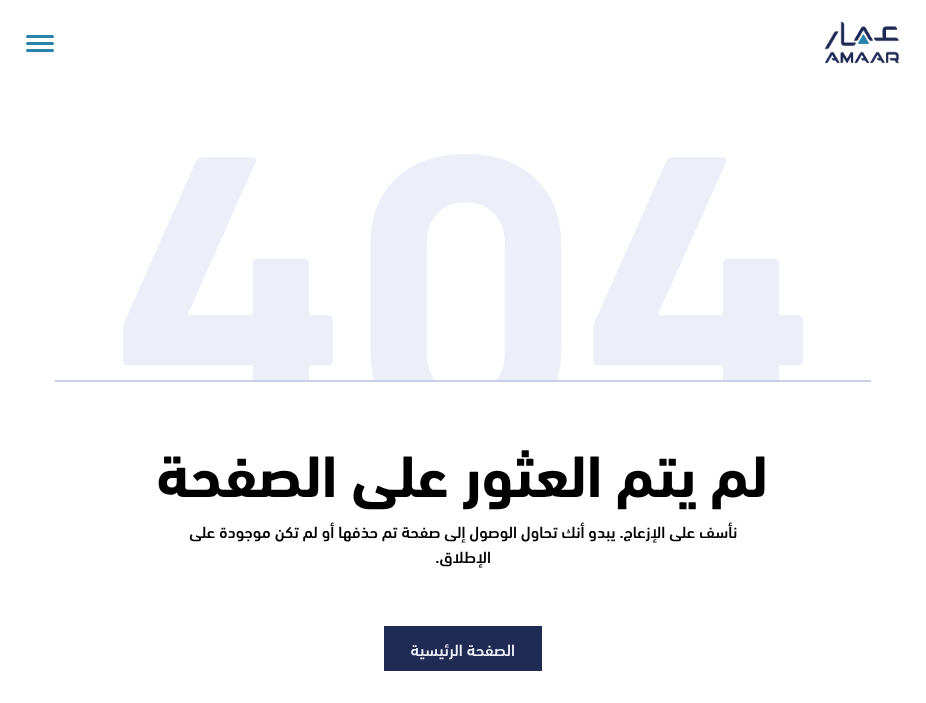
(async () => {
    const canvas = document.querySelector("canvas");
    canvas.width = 926;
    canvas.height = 703;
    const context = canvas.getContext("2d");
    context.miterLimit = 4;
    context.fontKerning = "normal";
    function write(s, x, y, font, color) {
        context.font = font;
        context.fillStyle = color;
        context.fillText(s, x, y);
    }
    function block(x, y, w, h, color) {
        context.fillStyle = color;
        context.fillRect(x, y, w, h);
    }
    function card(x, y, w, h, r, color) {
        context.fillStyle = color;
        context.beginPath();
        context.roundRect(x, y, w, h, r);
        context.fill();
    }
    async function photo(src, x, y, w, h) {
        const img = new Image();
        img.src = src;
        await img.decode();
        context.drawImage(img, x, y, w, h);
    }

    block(0, 0, 926, 703, "rgb(255, 255, 255)");
    await photo("media/1.png", 825, 21, 75, 43);
    card(26, 35, 28, 3, 1.5, "rgb(40, 130, 170)");
    card(26, 42, 28, 3, 1.5, "rgb(40, 130, 170)");
    card(26, 49, 28, 3, 1.5, "rgb(40, 130, 170)");
    await photo("media/2.png", 55, 154, 816, 228);
    context.direction = "rtl";
    write("لم يتم العثور على الصفحة", 768, 497, "bold 59.75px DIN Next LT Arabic", "rgb(0, 0, 0)");
    write("نأسف على الإزعاج. يبدو أنك تحاول الوصول إلى صفحة تم حذفها أو لم تكن موجودة على", 737, 538, "500 16.45px DIN Next LT Arabic", "rgb(0, 0, 0)");
    write("الإطلاق.", 491, 563, "500 16.45px DIN Next LT Arabic", "rgb(0, 0, 0)");
    block(384, 626, 158, 45, "rgb(32, 43, 84)");
    write("الصفحة الرئيسية", 515, 656, "500 16.45px DIN Next LT Arabic", "rgb(237, 239, 248)");
})();
